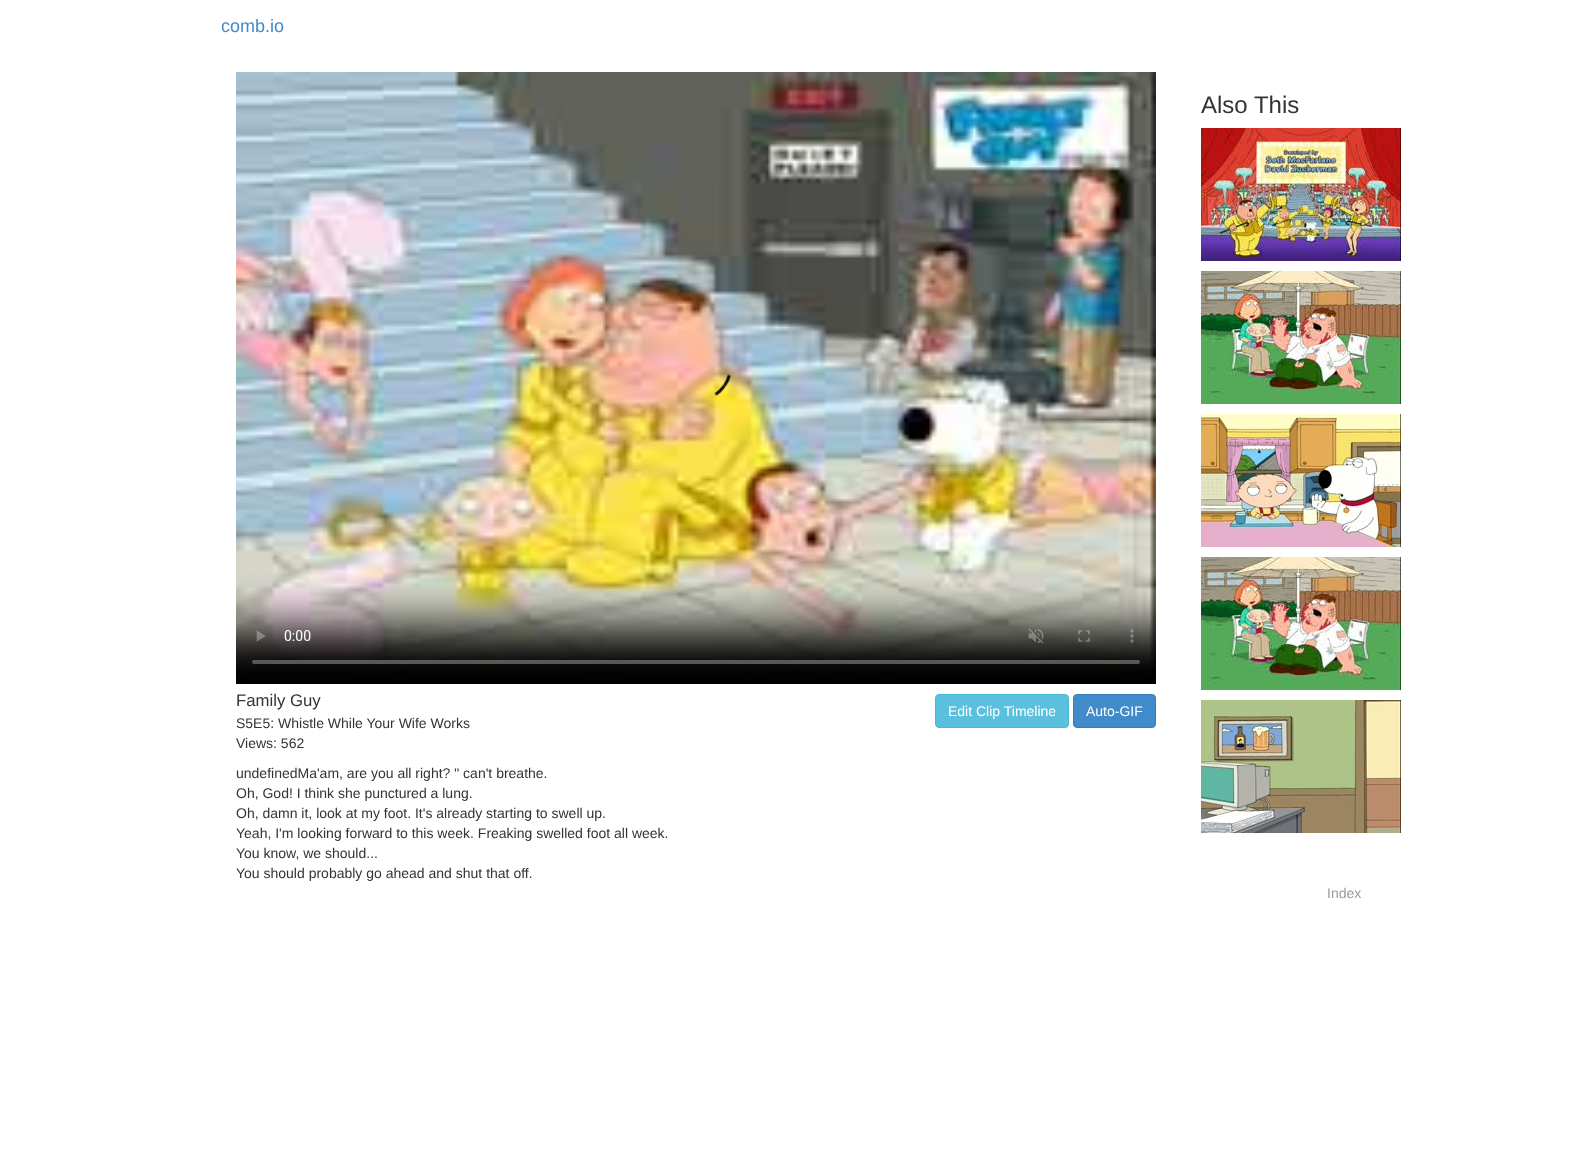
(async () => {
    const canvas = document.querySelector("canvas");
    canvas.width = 1582;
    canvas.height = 1150;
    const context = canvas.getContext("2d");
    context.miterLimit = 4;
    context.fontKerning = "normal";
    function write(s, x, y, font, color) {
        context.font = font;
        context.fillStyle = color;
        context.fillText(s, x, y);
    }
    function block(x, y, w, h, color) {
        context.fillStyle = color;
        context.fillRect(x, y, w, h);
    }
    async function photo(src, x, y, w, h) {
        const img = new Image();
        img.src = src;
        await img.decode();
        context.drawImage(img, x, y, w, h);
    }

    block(0, 0, 1582, 1150, "rgb(255, 255, 255)");
    write("comb.io", 221, 32, "18px Liberation Sans", "rgb(66, 139, 202)");
    write("Also This", 1201, 113, "24px Liberation Sans", "rgb(51, 51, 51)");
    await photo("media/1.png", 1201, 128, 200, 133);
    await photo("media/2.png", 1201, 271, 200, 133);
    await photo("media/3.png", 1201, 414, 200, 133);
    await photo("media/2.png", 1201, 557, 200, 133);
    await photo("media/4.png", 1201, 700, 200, 133);
    await photo("media/5.png", 236, 72, 920, 612);
    write("Family Guy", 236, 706, "16.75px Liberation Sans", "rgb(51, 51, 51)");
    write("S5E5: Whistle While Your Wife Works", 236, 728, "14px Liberation Sans", "rgb(51, 51, 51)");
    write("Views: 562", 236, 748, "14px Liberation Sans", "rgb(51, 51, 51)");
    write("undefinedMa'am, are you all right? \" can't breathe.", 236, 778, "14px Liberation Sans", "rgb(51, 51, 51)");
    write("Oh, God! I think she punctured a lung.", 236, 798, "14px Liberation Sans", "rgb(51, 51, 51)");
    write("Oh, damn it, look at my foot. It's already starting to swell up.", 236, 818, "14px Liberation Sans", "rgb(51, 51, 51)");
    write("Yeah, I'm looking forward to this week. Freaking swelled foot all week.", 236, 838, "14px Liberation Sans", "rgb(51, 51, 51)");
    write("You know, we should...", 236, 858, "14px Liberation Sans", "rgb(51, 51, 51)");
    write("You should probably go ahead and shut that off.", 236, 878, "14px Liberation Sans", "rgb(51, 51, 51)");
    context.fillStyle = "rgb(91, 192, 222)";
    context.beginPath();
    context.roundRect(935.5, 694.5, 133, 33, 3.5);
    context.fill();
    context.strokeStyle = "rgb(70, 184, 218)";
    context.stroke();
    write("Edit Clip Timeline", 948, 716, "14px Liberation Sans", "rgb(255, 255, 255)");
    context.fillStyle = "rgb(66, 139, 202)";
    context.beginPath();
    context.roundRect(1073.5, 694.5, 82, 33, 3.5);
    context.fill();
    context.strokeStyle = "rgb(53, 126, 189)";
    context.stroke();
    write("Auto-GIF", 1086, 716, "14px Liberation Sans", "rgb(255, 255, 255)");
    write("Index", 1327, 898, "14px Liberation Sans", "rgb(153, 153, 153)");
})();
